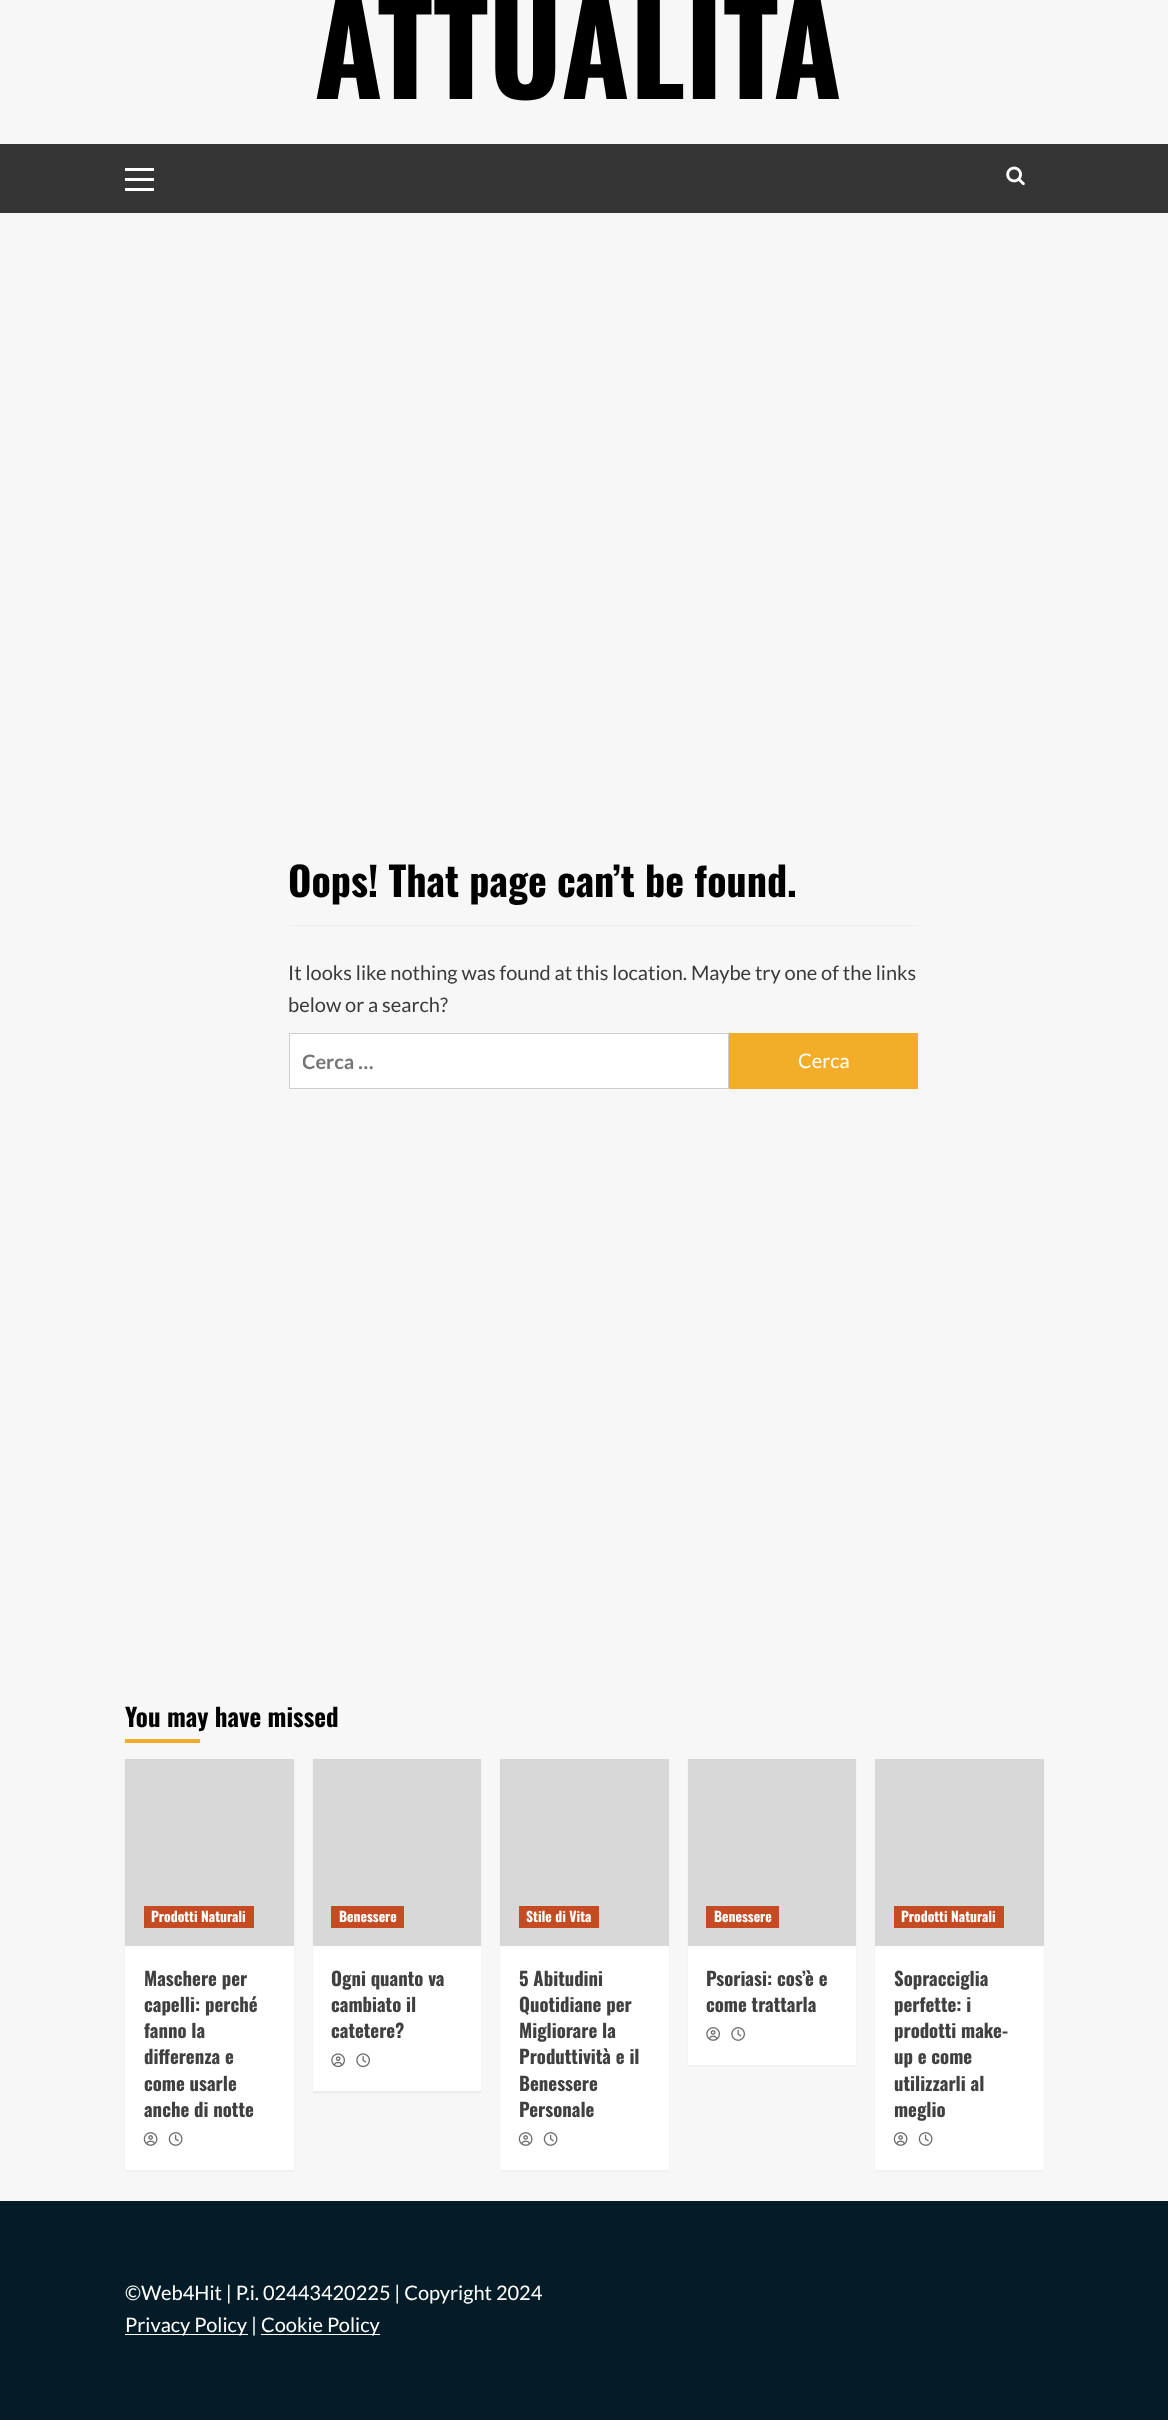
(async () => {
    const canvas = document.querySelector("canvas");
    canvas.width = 1168;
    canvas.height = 2420;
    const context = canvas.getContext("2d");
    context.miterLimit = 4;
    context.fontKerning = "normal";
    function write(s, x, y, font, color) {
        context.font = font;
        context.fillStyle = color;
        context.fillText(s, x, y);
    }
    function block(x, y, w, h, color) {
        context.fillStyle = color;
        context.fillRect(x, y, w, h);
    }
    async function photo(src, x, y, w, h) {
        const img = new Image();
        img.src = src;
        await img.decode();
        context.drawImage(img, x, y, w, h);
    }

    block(0, 0, 1168, 2420, "rgb(247, 247, 247)");
    write("ATTUALITÀ", 314, 99, "bold 125px Oswald", "rgb(0, 0, 0)");
    block(0, 144, 1168, 69, "rgb(53, 53, 53)");
    block(125, 178, 29, 3, "rgb(255, 255, 255)");
    block(125, 168, 29, 3, "rgb(255, 255, 255)");
    block(125, 188, 29, 3, "rgb(255, 255, 255)");
    await photo("media/1.png", 1006, 166, 19, 20);
    block(289, 925, 630, 1, "rgb(238, 238, 238)");
    write("Oops! That page can’t be found.", 288, 897, "bold 40px Oswald", "rgb(0, 0, 0)");
    write("It looks like nothing was found at this location. Maybe try one of the links", 288, 980, "20px Lato", "rgb(58, 58, 58)");
    write("below or a search?", 288, 1012, "20px Lato", "rgb(58, 58, 58)");
    context.fillStyle = "rgb(255, 255, 255)";
    context.beginPath();
    context.rect(289.5, 1033.5, 439, 55);
    context.fill();
    context.strokeStyle = "rgb(204, 204, 204)";
    context.stroke();
    context.save();
    context.beginPath();
    context.rect(303, 1049, 407, 24);
    context.clip();
    write("Cerca …", 302, 1069, "bold 20px Lato", "rgb(117, 117, 117)");
    context.restore();
    block(729, 1033, 189, 56, "rgb(243, 173, 41)");
    write("Cerca", 798, 1068, "20px Lato", "rgb(255, 255, 255)");
    write("You may have missed", 125, 1727, "bold 25px Oswald", "rgb(0, 0, 0)");
    block(125, 1739, 75, 4, "rgb(243, 173, 41)");
    context.fillStyle = "rgba(0, 0, 0, 0.05)";
    context.filter = "blur(1px)";
    context.beginPath();
    context.rect(125, 1760, 169, 411);
    context.fill();
    context.filter = "none";
    block(125, 1946, 169, 224, "rgb(255, 255, 255)");
    block(125, 1759, 169, 187, "rgb(216, 216, 216)");
    block(144, 1906, 110, 22, "rgb(196, 75, 34)");
    write("Prodotti Naturali", 151, 1922, "bold 13.75px Oswald", "rgb(255, 255, 255)");
    write("Maschere per", 144, 1986, "bold 18.75px Oswald", "rgb(64, 64, 64)");
    write("capelli: perché", 144, 2012, "bold 18.75px Oswald", "rgb(64, 64, 64)");
    write("fanno la", 144, 2038, "bold 18.75px Oswald", "rgb(64, 64, 64)");
    write("differenza e", 144, 2064, "bold 18.75px Oswald", "rgb(64, 64, 64)");
    write("come usarle", 144, 2091, "bold 18.75px Oswald", "rgb(64, 64, 64)");
    write("anche di notte", 144, 2117, "bold 18.75px Oswald", "rgb(64, 64, 64)");
    await photo("media/2.png", 143, 2132, 15, 14);
    await photo("media/3.png", 168, 2132, 15, 14);
    context.fillStyle = "rgba(0, 0, 0, 0.05)";
    context.filter = "blur(1px)";
    context.beginPath();
    context.rect(313, 1760, 168, 333);
    context.fill();
    context.filter = "none";
    block(313, 1946, 168, 145, "rgb(255, 255, 255)");
    block(313, 1759, 168, 187, "rgb(216, 216, 216)");
    block(331, 1906, 73, 22, "rgb(196, 75, 34)");
    write("Benessere", 339, 1922, "bold 13.75px Oswald", "rgb(255, 255, 255)");
    write("Ogni quanto va", 331, 1986, "bold 18.75px Oswald", "rgb(64, 64, 64)");
    write("cambiato il", 331, 2012, "bold 18.75px Oswald", "rgb(64, 64, 64)");
    write("catetere?", 331, 2038, "bold 18.75px Oswald", "rgb(64, 64, 64)");
    await photo("media/4.png", 331, 2053, 14, 15);
    await photo("media/5.png", 356, 2053, 14, 15);
    context.fillStyle = "rgba(0, 0, 0, 0.05)";
    context.filter = "blur(1px)";
    context.beginPath();
    context.rect(500, 1760, 169, 411);
    context.fill();
    context.filter = "none";
    block(500, 1946, 169, 224, "rgb(255, 255, 255)");
    block(500, 1759, 169, 187, "rgb(216, 216, 216)");
    block(519, 1906, 80, 22, "rgb(196, 75, 34)");
    write("Stile di Vita", 526, 1922, "bold 13.75px Oswald", "rgb(255, 255, 255)");
    write("5 Abitudini", 519, 1986, "bold 18.75px Oswald", "rgb(64, 64, 64)");
    write("Quotidiane per", 519, 2012, "bold 18.75px Oswald", "rgb(64, 64, 64)");
    write("Migliorare la", 519, 2038, "bold 18.75px Oswald", "rgb(64, 64, 64)");
    write("Produttività e il", 519, 2064, "bold 18.75px Oswald", "rgb(64, 64, 64)");
    write("Benessere", 519, 2091, "bold 18.75px Oswald", "rgb(64, 64, 64)");
    write("Personale", 519, 2117, "bold 18.75px Oswald", "rgb(64, 64, 64)");
    await photo("media/2.png", 518, 2132, 15, 14);
    await photo("media/3.png", 543, 2132, 15, 14);
    context.fillStyle = "rgba(0, 0, 0, 0.05)";
    context.filter = "blur(1px)";
    context.beginPath();
    context.rect(688, 1760, 168, 306);
    context.fill();
    context.filter = "none";
    block(688, 1946, 168, 119, "rgb(255, 255, 255)");
    block(688, 1759, 168, 187, "rgb(216, 216, 216)");
    block(706, 1906, 73, 22, "rgb(196, 75, 34)");
    write("Benessere", 714, 1922, "bold 13.75px Oswald", "rgb(255, 255, 255)");
    write("Psoriasi: cos’è e", 706, 1986, "bold 18.75px Oswald", "rgb(64, 64, 64)");
    write("come trattarla", 706, 2012, "bold 18.75px Oswald", "rgb(64, 64, 64)");
    await photo("media/6.png", 706, 2027, 14, 14);
    await photo("media/7.png", 731, 2027, 14, 14);
    context.fillStyle = "rgba(0, 0, 0, 0.05)";
    context.filter = "blur(1px)";
    context.beginPath();
    context.rect(875, 1760, 169, 411);
    context.fill();
    context.filter = "none";
    block(875, 1946, 169, 224, "rgb(255, 255, 255)");
    block(875, 1759, 169, 187, "rgb(216, 216, 216)");
    block(894, 1906, 110, 22, "rgb(196, 75, 34)");
    write("Prodotti Naturali", 901, 1922, "bold 13.75px Oswald", "rgb(255, 255, 255)");
    write("Sopracciglia", 894, 1986, "bold 18.75px Oswald", "rgb(64, 64, 64)");
    write("perfette: i", 894, 2012, "bold 18.75px Oswald", "rgb(64, 64, 64)");
    write("prodotti make-", 894, 2038, "bold 18.75px Oswald", "rgb(64, 64, 64)");
    write("up e come", 894, 2064, "bold 18.75px Oswald", "rgb(64, 64, 64)");
    write("utilizzarli al", 894, 2091, "bold 18.75px Oswald", "rgb(64, 64, 64)");
    write("meglio", 894, 2117, "bold 18.75px Oswald", "rgb(64, 64, 64)");
    await photo("media/2.png", 893, 2132, 15, 14);
    await photo("media/3.png", 918, 2132, 15, 14);
    block(0, 2201, 1168, 219, "rgb(3, 28, 39)");
    write("©Web4Hit | P.i. 02443420225 | Copyright 2024", 125, 2300, "20px Lato", "rgb(255, 255, 255)");
    block(125, 2334, 123, 1, "rgb(255, 255, 255)");
    write("Privacy Policy |", 125, 2332, "20px Lato", "rgb(255, 255, 255)");
    block(261, 2334, 119, 1, "rgb(255, 255, 255)");
    write("Cookie Policy", 261, 2332, "20px Lato", "rgb(255, 255, 255)");
})();
